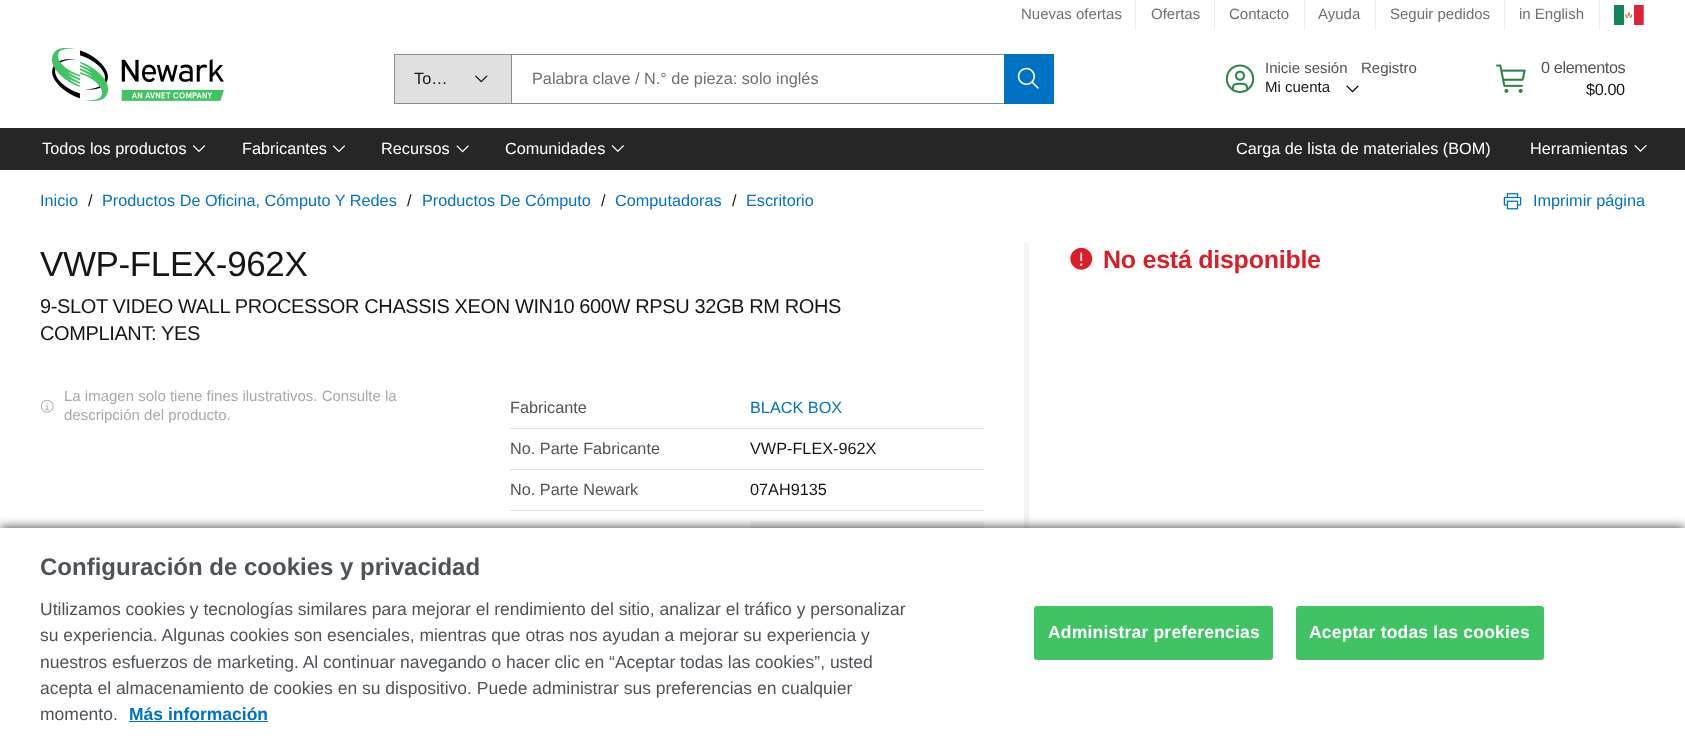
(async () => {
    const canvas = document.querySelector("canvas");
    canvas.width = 1685;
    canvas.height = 739;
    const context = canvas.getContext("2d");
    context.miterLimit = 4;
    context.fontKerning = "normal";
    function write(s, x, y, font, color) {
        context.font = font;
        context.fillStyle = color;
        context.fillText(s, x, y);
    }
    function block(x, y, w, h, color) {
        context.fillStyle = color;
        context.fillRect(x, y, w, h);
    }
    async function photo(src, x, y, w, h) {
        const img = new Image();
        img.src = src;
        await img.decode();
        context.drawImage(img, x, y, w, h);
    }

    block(0, 0, 1685, 739, "rgb(255, 255, 255)");
    block(1135, 0, 1, 30, "rgb(235, 235, 235)");
    write("Nuevas ofertas", 1021, 19, "15px Liberation Sans", "rgb(111, 111, 111)");
    block(1214, 0, 1, 30, "rgb(235, 235, 235)");
    write("Ofertas", 1151, 19, "15px Liberation Sans", "rgb(111, 111, 111)");
    block(1304, 0, 1, 30, "rgb(235, 235, 235)");
    write("Contacto", 1229, 19, "15px Liberation Sans", "rgb(111, 111, 111)");
    block(1375, 0, 1, 30, "rgb(235, 235, 235)");
    write("Ayuda", 1318, 19, "15px Liberation Sans", "rgb(111, 111, 111)");
    block(1504, 0, 1, 30, "rgb(235, 235, 235)");
    write("Seguir pedidos", 1390, 19, "15px Liberation Sans", "rgb(111, 111, 111)");
    block(1599, 0, 1, 30, "rgb(235, 235, 235)");
    write("in English", 1519, 19, "15px Liberation Sans", "rgb(111, 111, 111)");
    await photo("media/1.png", 1614, 5, 30, 20);
    await photo("media/2.png", 52, 48, 172, 53);
    block(395, 55, 116, 48, "rgb(224, 224, 224)");
    block(394, 54, 610, 1, "rgb(141, 141, 141)");
    block(394, 103, 610, 1, "rgb(141, 141, 141)");
    block(394, 54, 1, 50, "rgb(141, 141, 141)");
    write("To…", 414, 84, "16.25px Liberation Sans", "rgb(22, 22, 22)");
    await photo("media/3.png", 475, 75, 13, 8);
    block(511, 54, 1, 50, "rgb(141, 141, 141)");
    write("Palabra clave / N.° de pieza: solo inglés", 532, 84, "16.25px Liberation Sans", "rgb(111, 111, 111)");
    block(1004, 54, 50, 50, "rgb(0, 114, 195)");
    await photo("media/4.png", 1017, 67, 22, 22);
    await photo("media/5.png", 1225, 64, 30, 29);
    write("Inicie sesión", 1265, 73, "15px Liberation Sans", "rgb(82, 82, 82)");
    write("Registro", 1361, 73, "15px Liberation Sans", "rgb(82, 82, 82)");
    write("Mi cuenta", 1265, 92, "15px Liberation Sans", "rgb(22, 22, 22)");
    await photo("media/6.png", 1346, 85, 13, 8);
    await photo("media/7.png", 1496, 64, 30, 29);
    context.letterSpacing = "-0.38px";
    write("0 elementos", 1541, 73, "16.25px Liberation Sans", "rgb(82, 82, 82)");
    write("$0.00", 1586, 95, "16.25px Liberation Sans", "rgb(22, 22, 22)");
    block(0, 128, 1685, 42, "rgb(38, 38, 38)");
    context.letterSpacing = "0px";
    write("Todos los productos", 42, 154, "16.25px Liberation Sans", "rgb(255, 255, 255)");
    await photo("media/8.png", 192, 145, 14, 8);
    write("Fabricantes", 242, 154, "16.25px Liberation Sans", "rgb(255, 255, 255)");
    await photo("media/9.png", 332, 145, 14, 8);
    write("Recursos", 381, 154, "16.25px Liberation Sans", "rgb(255, 255, 255)");
    await photo("media/10.png", 456, 145, 13, 8);
    write("Comunidades", 505, 154, "16.25px Liberation Sans", "rgb(255, 255, 255)");
    await photo("media/11.png", 611, 145, 13, 7);
    write("Carga de lista de materiales (BOM)", 1236, 154, "16.25px Liberation Sans", "rgb(255, 255, 255)");
    write("Herramientas", 1530, 154, "16.25px Liberation Sans", "rgb(255, 255, 255)");
    await photo("media/12.png", 1634, 145, 13, 7);
    write("Inicio", 40, 206, "16.25px Liberation Sans", "rgb(0, 114, 195)");
    write("/", 88, 206, "16.25px Liberation Sans", "rgb(22, 22, 22)");
    write("Productos De Oficina, Cómputo Y Redes", 102, 206, "16.25px Liberation Sans", "rgb(0, 114, 195)");
    write("/", 407, 206, "16.25px Liberation Sans", "rgb(22, 22, 22)");
    write("Productos De Cómputo", 422, 206, "16.25px Liberation Sans", "rgb(0, 114, 195)");
    write("/", 601, 206, "16.25px Liberation Sans", "rgb(22, 22, 22)");
    write("Computadoras", 615, 206, "16.25px Liberation Sans", "rgb(0, 114, 195)");
    write("/", 732, 206, "16.25px Liberation Sans", "rgb(22, 22, 22)");
    write("Escritorio", 746, 206, "16.25px Liberation Sans", "rgb(0, 114, 195)");
    await photo("media/13.png", 1503, 193, 19, 17);
    write("Imprimir página", 1533, 206, "16.25px Liberation Sans", "rgb(0, 114, 195)");
    block(1024, 243, 5, 285, "rgb(244, 244, 244)");
    context.letterSpacing = "-0.38px";
    write("VWP-FLEX-962X", 40, 276, "35px Liberation Sans", "rgb(22, 22, 22)");
    write("9-SLOT VIDEO WALL PROCESSOR CHASSIS XEON WIN10 600W RPSU 32GB RM ROHS", 40, 313, "20px Liberation Sans", "rgb(22, 22, 22)");
    write("COMPLIANT: YES", 40, 340, "20px Liberation Sans", "rgb(22, 22, 22)");
    await photo("media/14.png", 40, 400, 14, 13);
    context.letterSpacing = "0px";
    write("La imagen solo tiene fines ilustrativos. Consulte la", 64, 401, "15px Liberation Sans", "rgb(168, 168, 168)");
    write("descripción del producto.", 64, 420, "15px Liberation Sans", "rgb(168, 168, 168)");
    block(510, 428, 474, 1, "rgb(224, 224, 224)");
    write("Fabricante", 510, 413, "16.25px Liberation Sans", "rgb(82, 82, 82)");
    write("BLACK BOX", 750, 413, "16.25px Liberation Sans", "rgb(0, 114, 195)");
    block(510, 469, 474, 1, "rgb(224, 224, 224)");
    write("No. Parte Fabricante", 510, 454, "16.25px Liberation Sans", "rgb(82, 82, 82)");
    write("VWP-FLEX-962X", 750, 454, "16.25px Liberation Sans", "rgb(22, 22, 22)");
    block(510, 510, 474, 1, "rgb(224, 224, 224)");
    write("No. Parte Newark", 510, 495, "16.25px Liberation Sans", "rgb(82, 82, 82)");
    write("07AH9135", 750, 495, "16.25px Liberation Sans", "rgb(22, 22, 22)");
    block(750, 521, 234, 7, "rgb(244, 244, 244)");
    await photo("media/15.png", 1070, 247, 23, 23);
    context.letterSpacing = "-0.25px";
    write("No está disponible", 1103, 268, "bold 25px Liberation Sans", "rgb(218, 30, 40)");
    context.fillStyle = "rgba(0, 0, 0, 0.8)";
    context.filter = "blur(6px)";
    context.beginPath();
    context.rect(0, 528, 1685, 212);
    context.fill();
    context.filter = "none";
    block(0, 528, 1685, 211, "rgb(255, 255, 255)");
    context.letterSpacing = "0px";
    write("Configuración de cookies y privacidad", 40, 575, "bold 24px Liberation Sans", "rgb(77, 83, 88)");
    write("Utilizamos cookies y tecnologías similares para mejorar el rendimiento del sitio, analizar el tráfico y personalizar", 40, 615, "17.5px Liberation Sans", "rgb(77, 83, 88)");
    write("su experiencia. Algunas cookies son esenciales, mientras que otras nos ayudan a mejorar su experiencia y", 40, 641, "17.5px Liberation Sans", "rgb(77, 83, 88)");
    write("nuestros esfuerzos de marketing. Al continuar navegando o hacer clic en “Aceptar todas las cookies”, usted", 40, 668, "17.5px Liberation Sans", "rgb(77, 83, 88)");
    write("acepta el almacenamiento de cookies en su dispositivo. Puede administrar sus preferencias en cualquier", 40, 694, "17.5px Liberation Sans", "rgb(77, 83, 88)");
    write("momento.", 40, 720, "17.5px Liberation Sans", "rgb(77, 83, 88)");
    write("Más información", 129, 720, "bold 17.5px Liberation Sans", "rgb(0, 114, 195)");
    block(129, 721, 139, 1, "rgb(0, 114, 195)");
    context.fillStyle = "rgb(65, 195, 99)";
    context.beginPath();
    context.roundRect(1034.5, 606.5, 238, 53, 2);
    context.fill();
    context.strokeStyle = "rgb(65, 195, 99)";
    context.stroke();
    context.letterSpacing = "0.2px";
    write("Administrar preferencias", 1048, 638, "bold 17.5px Liberation Sans", "rgb(255, 255, 255)");
    context.fillStyle = "rgb(65, 195, 99)";
    context.beginPath();
    context.roundRect(1296.5, 606.5, 247, 53, 2);
    context.fill();
    context.stroke();
    write("Aceptar todas las cookies", 1309, 638, "bold 17.5px Liberation Sans", "rgb(255, 255, 255)");
})();
